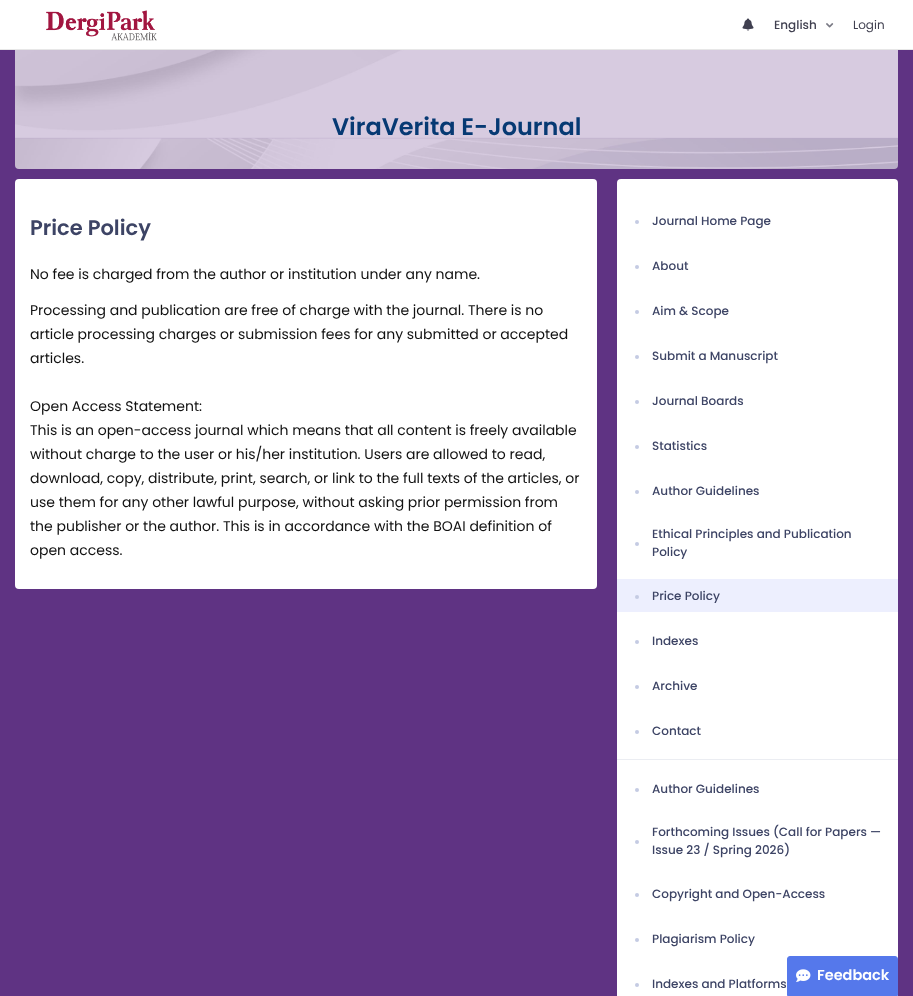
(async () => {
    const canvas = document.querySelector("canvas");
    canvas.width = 913;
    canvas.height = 996;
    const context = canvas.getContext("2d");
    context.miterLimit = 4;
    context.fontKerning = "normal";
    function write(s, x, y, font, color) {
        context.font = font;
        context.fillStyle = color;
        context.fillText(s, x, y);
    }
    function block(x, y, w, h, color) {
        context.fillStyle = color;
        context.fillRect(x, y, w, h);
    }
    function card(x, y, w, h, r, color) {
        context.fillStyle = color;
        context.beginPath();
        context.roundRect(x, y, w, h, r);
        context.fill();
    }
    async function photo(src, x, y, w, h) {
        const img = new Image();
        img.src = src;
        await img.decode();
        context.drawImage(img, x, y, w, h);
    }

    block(0, 0, 913, 996, "rgb(95, 51, 131)");
    block(0, 0, 913, 49, "rgb(255, 255, 255)");
    block(0, 49, 913, 1, "rgb(231, 231, 231)");
    await photo("media/1.png", 46, 10, 111, 31);
    await photo("media/2.png", 742, 18, 12, 13);
    write("English", 774, 29, "500 12px Poppins", "rgb(64, 64, 80)");
    await photo("media/3.png", 826, 23, 8, 5);
    write("Login", 853, 29, "12px Poppins", "rgb(64, 64, 80)");
    await photo("media/4.png", 15, 50, 883, 119);
    write("ViraVerita E-Journal", 332, 135, "600 24px Poppins", "rgb(6, 57, 115)");
    card(15, 179, 582, 410, 4, "rgb(255, 255, 255)");
    write("Price Policy", 30, 235, "600 21px Poppins", "rgb(61, 68, 101)");
    write("No fee is charged from the author or institution under any name.", 30, 279, "14px Poppins", "rgb(17, 17, 17)");
    write("Processing and publication are free of charge with the journal. There is no", 30, 315, "14px Poppins", "rgb(17, 17, 17)");
    write("article processing charges or submission fees for any submitted or accepted", 30, 339, "14px Poppins", "rgb(17, 17, 17)");
    write("articles.", 30, 363, "14px Poppins", "rgb(17, 17, 17)");
    write("Open Access Statement:", 30, 411, "14px Poppins", "rgb(17, 17, 17)");
    write("This is an open-access journal which means that all content is freely available", 30, 435, "14px Poppins", "rgb(17, 17, 17)");
    write("without charge to the user or his/her institution. Users are allowed to read,", 30, 459, "14px Poppins", "rgb(17, 17, 17)");
    write("download, copy, distribute, print, search, or link to the full texts of the articles, or", 30, 483, "14px Poppins", "rgb(17, 17, 17)");
    write("use them for any other lawful purpose, without asking prior permission from", 30, 507, "14px Poppins", "rgb(17, 17, 17)");
    write("the publisher or the author. This is in accordance with the BOAI definition of", 30, 531, "14px Poppins", "rgb(17, 17, 17)");
    write("open access.", 30, 555, "14px Poppins", "rgb(17, 17, 17)");
    card(617, 179, 281, 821, 4, "rgb(255, 255, 255)");
    context.fillStyle = "rgb(197, 203, 227)";
    context.beginPath();
    context.arc(637, 222, 2, 0, Math.PI * 2);
    context.fill();
    write("Journal Home Page", 652, 225, "500 12px Poppins", "rgb(61, 68, 101)");
    context.fillStyle = "rgb(197, 203, 227)";
    context.beginPath();
    context.arc(637, 267, 2, 0, Math.PI * 2);
    context.fill();
    write("About", 652, 270, "500 12px Poppins", "rgb(61, 68, 101)");
    context.fillStyle = "rgb(197, 203, 227)";
    context.beginPath();
    context.arc(637, 312, 2, 0, Math.PI * 2);
    context.fill();
    write("Aim & Scope", 652, 315, "500 12px Poppins", "rgb(61, 68, 101)");
    context.fillStyle = "rgb(197, 203, 227)";
    context.beginPath();
    context.arc(637, 357, 2, 0, Math.PI * 2);
    context.fill();
    write("Submit a Manuscript", 652, 360, "500 12px Poppins", "rgb(61, 68, 101)");
    context.fillStyle = "rgb(197, 203, 227)";
    context.beginPath();
    context.arc(637, 402, 2, 0, Math.PI * 2);
    context.fill();
    write("Journal Boards", 652, 405, "500 12px Poppins", "rgb(61, 68, 101)");
    context.fillStyle = "rgb(197, 203, 227)";
    context.beginPath();
    context.arc(637, 447, 2, 0, Math.PI * 2);
    context.fill();
    write("Statistics", 652, 450, "500 12px Poppins", "rgb(61, 68, 101)");
    context.fillStyle = "rgb(197, 203, 227)";
    context.beginPath();
    context.arc(637, 492, 2, 0, Math.PI * 2);
    context.fill();
    write("Author Guidelines", 652, 495, "500 12px Poppins", "rgb(61, 68, 101)");
    context.fillStyle = "rgb(197, 203, 227)";
    context.beginPath();
    context.arc(637, 544, 2, 0, Math.PI * 2);
    context.fill();
    write("Ethical Principles and Publication", 652, 538, "500 12px Poppins", "rgb(61, 68, 101)");
    write("Policy", 652, 556, "500 12px Poppins", "rgb(61, 68, 101)");
    block(617, 579, 281, 33, "rgb(237, 239, 254)");
    context.fillStyle = "rgb(197, 203, 227)";
    context.beginPath();
    context.arc(637, 597, 2, 0, Math.PI * 2);
    context.fill();
    write("Price Policy", 652, 600, "500 12px Poppins", "rgb(61, 68, 101)");
    context.fillStyle = "rgb(197, 203, 227)";
    context.beginPath();
    context.arc(637, 642, 2, 0, Math.PI * 2);
    context.fill();
    write("Indexes", 652, 645, "500 12px Poppins", "rgb(61, 68, 101)");
    context.fillStyle = "rgb(197, 203, 227)";
    context.beginPath();
    context.arc(637, 687, 2, 0, Math.PI * 2);
    context.fill();
    write("Archive", 652, 690, "500 12px Poppins", "rgb(61, 68, 101)");
    context.fillStyle = "rgb(197, 203, 227)";
    context.beginPath();
    context.arc(637, 732, 2, 0, Math.PI * 2);
    context.fill();
    write("Contact", 652, 735, "500 12px Poppins", "rgb(61, 68, 101)");
    block(617, 759, 281, 1, "rgb(235, 237, 242)");
    context.fillStyle = "rgb(197, 203, 227)";
    context.beginPath();
    context.arc(637, 790, 2, 0, Math.PI * 2);
    context.fill();
    write("Author Guidelines", 652, 793, "500 12px Poppins", "rgb(61, 68, 101)");
    context.fillStyle = "rgb(197, 203, 227)";
    context.beginPath();
    context.arc(637, 842, 2, 0, Math.PI * 2);
    context.fill();
    write("Forthcoming Issues (Call for Papers —", 652, 836, "500 12px Poppins", "rgb(61, 68, 101)");
    write("Issue 23 / Spring 2026)", 652, 854, "500 12px Poppins", "rgb(61, 68, 101)");
    context.fillStyle = "rgb(197, 203, 227)";
    context.beginPath();
    context.arc(637, 895, 2, 0, Math.PI * 2);
    context.fill();
    write("Copyright and Open-Access", 652, 898, "500 12px Poppins", "rgb(61, 68, 101)");
    context.fillStyle = "rgb(197, 203, 227)";
    context.beginPath();
    context.arc(637, 940, 2, 0, Math.PI * 2);
    context.fill();
    write("Plagiarism Policy", 652, 943, "500 12px Poppins", "rgb(61, 68, 101)");
    context.fillStyle = "rgb(197, 203, 227)";
    context.beginPath();
    context.arc(637, 985, 2, 0, Math.PI * 2);
    context.fill();
    write("Indexes and Platforms", 652, 988, "500 12px Poppins", "rgb(61, 68, 101)");
    context.fillStyle = "rgb(85, 120, 235)";
    context.beginPath();
    context.roundRect(787.5, 956.5, 110, 39, [2.5, 2.5, 0, 0]);
    context.fill();
    context.strokeStyle = "rgb(85, 120, 235)";
    context.stroke();
    await photo("media/5.png", 796, 969, 15, 13);
    write("Feedback", 817, 980, "600 14.5px Poppins", "rgb(255, 255, 255)");
})();
